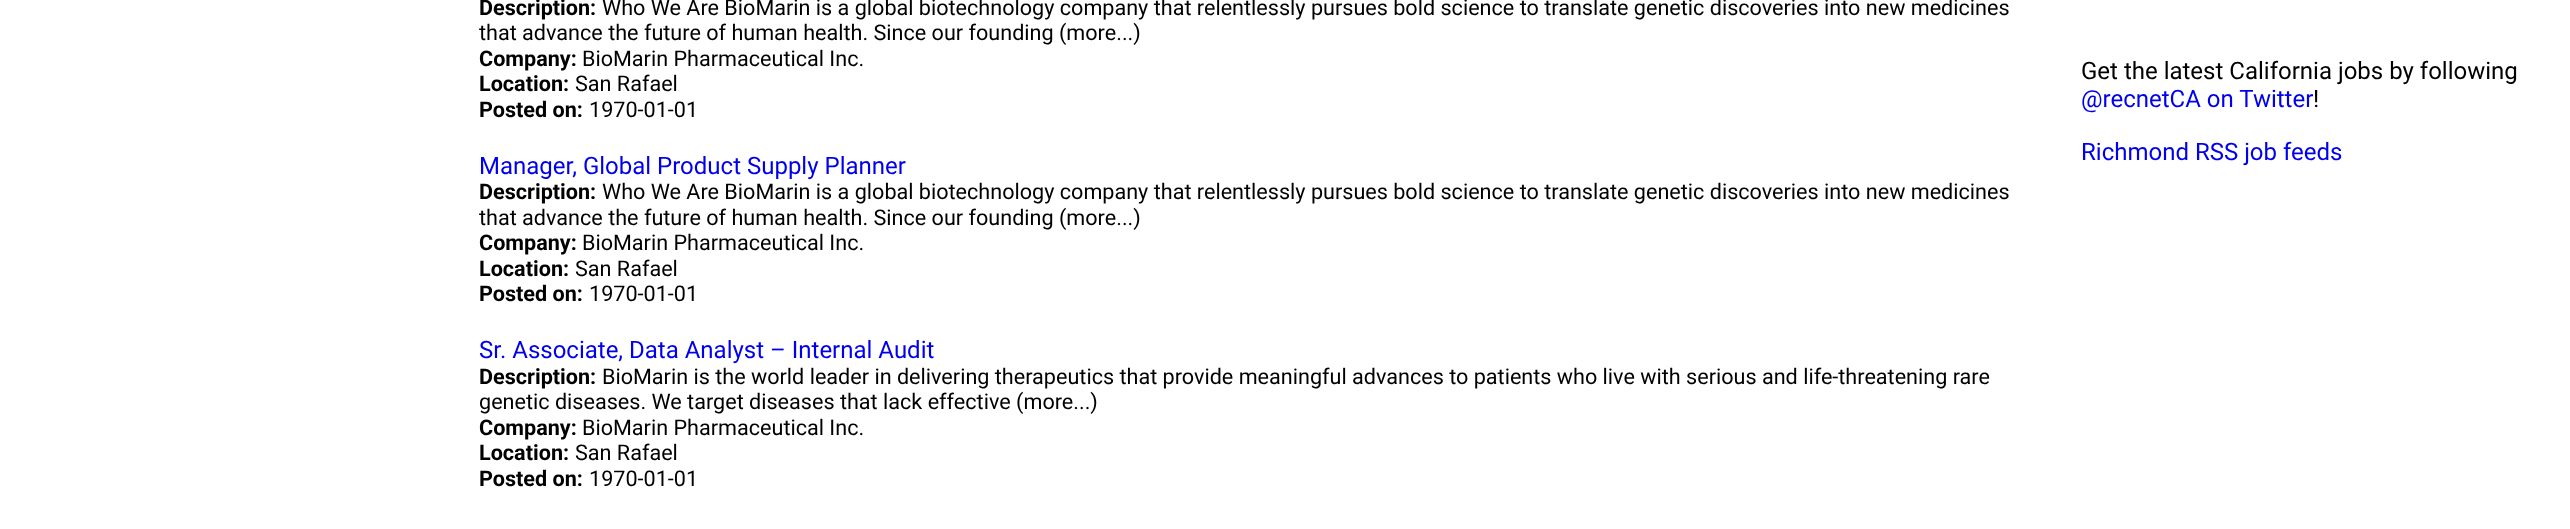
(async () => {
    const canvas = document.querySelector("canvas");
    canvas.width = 2570;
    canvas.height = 529;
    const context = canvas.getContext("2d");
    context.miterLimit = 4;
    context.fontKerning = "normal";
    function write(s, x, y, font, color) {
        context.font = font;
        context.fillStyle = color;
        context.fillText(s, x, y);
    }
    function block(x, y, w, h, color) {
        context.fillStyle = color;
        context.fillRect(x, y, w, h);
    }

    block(0, 0, 2570, 529, "rgb(255, 255, 255)");
    write("Description:", 479, 15, "bold 21.6px Roboto", "rgb(0, 0, 0)");
    write("Who We Are BioMarin is a global biotechnology company that relentlessly pursues bold science to translate genetic discoveries into new medicines", 602, 15, "21.6px Roboto", "rgb(0, 0, 0)");
    write("that advance the future of human health. Since our founding (more...)", 479, 40, "21.6px Roboto", "rgb(0, 0, 0)");
    write("Company:", 479, 66, "bold 21.6px Roboto", "rgb(0, 0, 0)");
    write("BioMarin Pharmaceutical Inc.", 582, 66, "21.6px Roboto", "rgb(0, 0, 0)");
    write("Location:", 479, 91, "bold 21.6px Roboto", "rgb(0, 0, 0)");
    write("San Rafael", 575, 91, "21.6px Roboto", "rgb(0, 0, 0)");
    write("Posted on:", 479, 117, "bold 21.6px Roboto", "rgb(0, 0, 0)");
    write("1970-01-01", 589, 117, "21.6px Roboto", "rgb(0, 0, 0)");
    write("Manager, Global Product Supply Planner", 479, 174, "24px Roboto", "rgb(0, 0, 238)");
    write("Description:", 479, 199, "bold 21.6px Roboto", "rgb(0, 0, 0)");
    write("Who We Are BioMarin is a global biotechnology company that relentlessly pursues bold science to translate genetic discoveries into new medicines", 602, 199, "21.6px Roboto", "rgb(0, 0, 0)");
    write("that advance the future of human health. Since our founding (more...)", 479, 225, "21.6px Roboto", "rgb(0, 0, 0)");
    write("Company:", 479, 250, "bold 21.6px Roboto", "rgb(0, 0, 0)");
    write("BioMarin Pharmaceutical Inc.", 582, 250, "21.6px Roboto", "rgb(0, 0, 0)");
    write("Location:", 479, 276, "bold 21.6px Roboto", "rgb(0, 0, 0)");
    write("San Rafael", 575, 276, "21.6px Roboto", "rgb(0, 0, 0)");
    write("Posted on:", 479, 301, "bold 21.6px Roboto", "rgb(0, 0, 0)");
    write("1970-01-01", 589, 301, "21.6px Roboto", "rgb(0, 0, 0)");
    write("Sr. Associate, Data Analyst – Internal Audit", 479, 358, "24px Roboto", "rgb(0, 0, 238)");
    write("Description:", 479, 384, "bold 21.6px Roboto", "rgb(0, 0, 0)");
    write("BioMarin is the world leader in delivering therapeutics that provide meaningful advances to patients who live with serious and life-threatening rare", 602, 384, "21.6px Roboto", "rgb(0, 0, 0)");
    write("genetic diseases. We target diseases that lack effective (more...)", 479, 409, "21.6px Roboto", "rgb(0, 0, 0)");
    write("Company:", 479, 435, "bold 21.6px Roboto", "rgb(0, 0, 0)");
    write("BioMarin Pharmaceutical Inc.", 582, 435, "21.6px Roboto", "rgb(0, 0, 0)");
    write("Location:", 479, 460, "bold 21.6px Roboto", "rgb(0, 0, 0)");
    write("San Rafael", 575, 460, "21.6px Roboto", "rgb(0, 0, 0)");
    write("Posted on:", 479, 486, "bold 21.6px Roboto", "rgb(0, 0, 0)");
    write("1970-01-01", 589, 486, "21.6px Roboto", "rgb(0, 0, 0)");
    write("Get the latest California jobs by following", 2081, 79, "24px Roboto", "rgb(0, 0, 0)");
    write("@recnetCA on Twitter", 2081, 107, "24px Roboto", "rgb(0, 0, 238)");
    write("!", 2313, 107, "24px Roboto", "rgb(0, 0, 0)");
    write("Richmond RSS job feeds", 2081, 160, "24px Roboto", "rgb(0, 0, 238)");
})();
